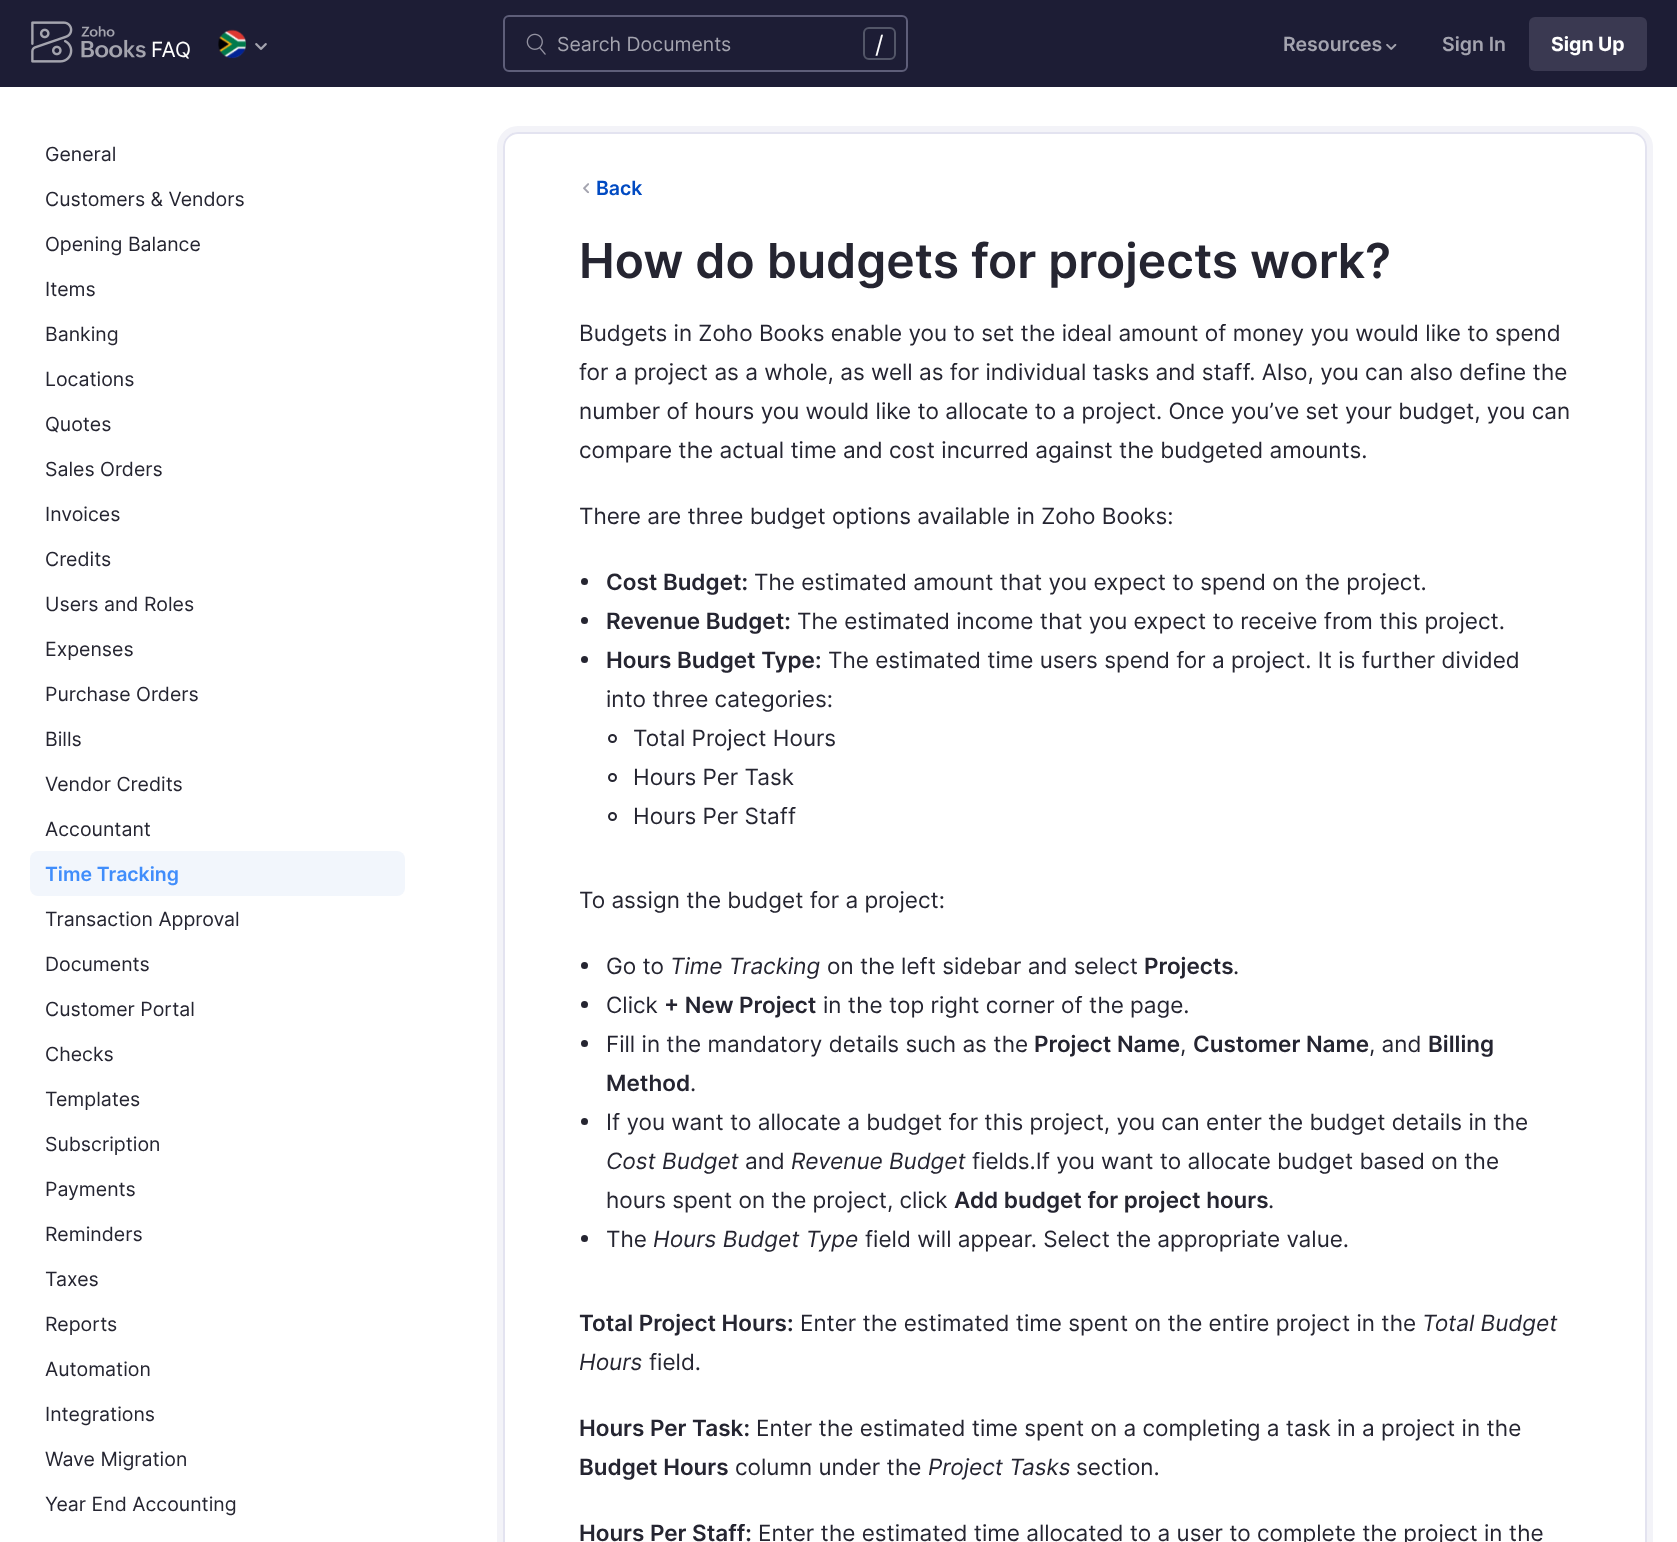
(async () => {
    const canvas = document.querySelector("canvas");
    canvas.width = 1677;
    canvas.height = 1542;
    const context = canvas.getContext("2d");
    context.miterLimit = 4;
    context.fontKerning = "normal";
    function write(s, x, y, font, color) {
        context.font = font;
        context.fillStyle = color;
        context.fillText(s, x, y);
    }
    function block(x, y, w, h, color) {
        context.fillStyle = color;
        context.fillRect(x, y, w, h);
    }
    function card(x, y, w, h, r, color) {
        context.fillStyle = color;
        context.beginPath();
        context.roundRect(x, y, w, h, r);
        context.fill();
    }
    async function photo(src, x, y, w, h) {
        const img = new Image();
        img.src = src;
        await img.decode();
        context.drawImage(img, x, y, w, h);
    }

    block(0, 0, 1677, 1542, "rgb(255, 255, 255)");
    block(0, 0, 1677, 87, "rgb(29, 29, 53)");
    await photo("media/1.png", 31, 21, 115, 42);
    write("FAQ", 151, 57, "21px Inter", "rgb(255, 255, 255)");
    await photo("media/2.png", 218, 29, 28, 30);
    await photo("media/3.png", 255, 43, 12, 7);
    await photo("media/4.png", 526, 33, 20, 22);
    context.beginPath();
    context.roundRect(504, 16, 403, 55, 5);
    context.strokeStyle = "rgb(94, 94, 121)";
    context.lineWidth = 2;
    context.stroke();
    write("Search Documents", 557, 51, "19.5px Inter", "rgb(164, 164, 175)");
    context.beginPath();
    context.roundRect(864, 28, 31, 31, 5);
    context.strokeStyle = "rgb(83, 86, 104)";
    context.stroke();
    write("/", 875, 53, "24px Inter", "rgb(255, 255, 255)");
    write("Resources", 1283, 51, "600 19.5px Inter", "rgb(164, 164, 175)");
    await photo("media/5.png", 1386, 44, 11, 6);
    write("Sign In", 1442, 51, "600 19.5px Inter", "rgb(164, 164, 175)");
    card(1529, 17, 118, 54, 6, "rgb(58, 57, 81)");
    write("Sign Up", 1551, 51, "bold 19.5px Inter", "rgb(255, 255, 255)");
    write("General", 45, 161, "19.5px Inter", "rgb(37, 37, 49)");
    write("Customers & Vendors", 45, 206, "19.5px Inter", "rgb(37, 37, 49)");
    write("Opening Balance", 45, 251, "19.5px Inter", "rgb(37, 37, 49)");
    write("Items", 45, 296, "19.5px Inter", "rgb(37, 37, 49)");
    write("Banking", 45, 341, "19.5px Inter", "rgb(37, 37, 49)");
    write("Locations", 45, 386, "19.5px Inter", "rgb(37, 37, 49)");
    write("Quotes", 45, 431, "19.5px Inter", "rgb(37, 37, 49)");
    write("Sales Orders", 45, 476, "19.5px Inter", "rgb(37, 37, 49)");
    write("Invoices", 45, 521, "19.5px Inter", "rgb(37, 37, 49)");
    write("Credits", 45, 566, "19.5px Inter", "rgb(37, 37, 49)");
    write("Users and Roles", 45, 611, "19.5px Inter", "rgb(37, 37, 49)");
    write("Expenses", 45, 656, "19.5px Inter", "rgb(37, 37, 49)");
    write("Purchase Orders", 45, 701, "19.5px Inter", "rgb(37, 37, 49)");
    write("Bills", 45, 746, "19.5px Inter", "rgb(37, 37, 49)");
    write("Vendor Credits", 45, 791, "19.5px Inter", "rgb(37, 37, 49)");
    write("Accountant", 45, 836, "19.5px Inter", "rgb(37, 37, 49)");
    card(30, 851, 375, 45, 8, "rgb(242, 246, 252)");
    write("Time Tracking", 45, 881, "600 19.5px Inter", "rgb(64, 141, 251)");
    write("Transaction Approval", 45, 926, "19.5px Inter", "rgb(37, 37, 49)");
    write("Documents", 45, 971, "19.5px Inter", "rgb(37, 37, 49)");
    write("Customer Portal", 45, 1016, "19.5px Inter", "rgb(37, 37, 49)");
    write("Checks", 45, 1061, "19.5px Inter", "rgb(37, 37, 49)");
    write("Templates", 45, 1106, "19.5px Inter", "rgb(37, 37, 49)");
    write("Subscription", 45, 1151, "19.5px Inter", "rgb(37, 37, 49)");
    write("Payments", 45, 1196, "19.5px Inter", "rgb(37, 37, 49)");
    write("Reminders", 45, 1241, "19.5px Inter", "rgb(37, 37, 49)");
    write("Taxes", 45, 1286, "19.5px Inter", "rgb(37, 37, 49)");
    write("Reports", 45, 1331, "19.5px Inter", "rgb(37, 37, 49)");
    write("Automation", 45, 1376, "19.5px Inter", "rgb(37, 37, 49)");
    write("Integrations", 45, 1421, "19.5px Inter", "rgb(37, 37, 49)");
    write("Wave Migration", 45, 1466, "19.5px Inter", "rgb(37, 37, 49)");
    write("Year End Accounting", 45, 1511, "19.5px Inter", "rgb(37, 37, 49)");
    context.beginPath();
    context.roundRect(500, 129, 1150, 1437, 18);
    context.strokeStyle = "rgb(243, 243, 248)";
    context.lineWidth = 6;
    context.stroke();
    context.beginPath();
    context.roundRect(504, 133, 1142, 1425, 14);
    context.strokeStyle = "rgb(227, 227, 240)";
    context.lineWidth = 2;
    context.stroke();
    await photo("media/6.png", 583, 183, 6, 11);
    write("Back", 596, 195, "600 19.5px Inter", "rgb(0, 74, 194)");
    write("How do budgets for projects work?", 579, 278, "600 48px Inter", "rgb(37, 37, 49)");
    write("Budgets in Zoho Books enable you to set the ideal amount of money you would like to spend", 579, 341, "22.5px Inter", "rgb(37, 37, 49)");
    write("for a project as a whole, as well as for individual tasks and staff. Also, you can also define the", 579, 380, "22.5px Inter", "rgb(37, 37, 49)");
    write("number of hours you would like to allocate to a project. Once you’ve set your budget, you can", 579, 419, "22.5px Inter", "rgb(37, 37, 49)");
    write("compare the actual time and cost incurred against the budgeted amounts.", 579, 458, "22.5px Inter", "rgb(37, 37, 49)");
    write("There are three budget options available in Zoho Books:", 579, 524, "22.5px Inter", "rgb(37, 37, 49)");
    context.beginPath();
    context.arc(584.5, 581.5, 3.5, 0, Math.PI * 2);
    context.fill();
    write("Cost Budget:", 606, 590, "600 22.5px Inter", "rgb(37, 37, 49)");
    write("The estimated amount that you expect to spend on the project.", 754, 590, "22.5px Inter", "rgb(37, 37, 49)");
    context.beginPath();
    context.arc(584.5, 620.5, 3.5, 0, Math.PI * 2);
    context.fill();
    write("Revenue Budget:", 606, 629, "600 22.5px Inter", "rgb(37, 37, 49)");
    write("The estimated income that you expect to receive from this project.", 797, 629, "22.5px Inter", "rgb(37, 37, 49)");
    context.beginPath();
    context.arc(584.5, 659.5, 3.5, 0, Math.PI * 2);
    context.fill();
    write("Hours Budget Type:", 606, 668, "600 22.5px Inter", "rgb(37, 37, 49)");
    write("The estimated time users spend for a project. It is further divided", 828, 668, "22.5px Inter", "rgb(37, 37, 49)");
    write("into three categories:", 606, 707, "22.5px Inter", "rgb(37, 37, 49)");
    context.beginPath();
    context.arc(612.5, 738.5, 3.5, 0, Math.PI * 2);
    context.strokeStyle = "rgb(37, 37, 49)";
    context.stroke();
    write("Total Project Hours", 633, 746, "22.5px Inter", "rgb(37, 37, 49)");
    context.beginPath();
    context.arc(612.5, 777.5, 3.5, 0, Math.PI * 2);
    context.stroke();
    write("Hours Per Task", 633, 785, "22.5px Inter", "rgb(37, 37, 49)");
    context.beginPath();
    context.arc(612.5, 816.5, 3.5, 0, Math.PI * 2);
    context.stroke();
    write("Hours Per Staff", 633, 824, "22.5px Inter", "rgb(37, 37, 49)");
    write("To assign the budget for a project:", 579, 908, "22.5px Inter", "rgb(37, 37, 49)");
    context.beginPath();
    context.arc(584.5, 965.5, 3.5, 0, Math.PI * 2);
    context.fill();
    write("Go to", 606, 974, "22.5px Inter", "rgb(37, 37, 49)");
    write("Time Tracking", 670, 974, "italic 22.5px Inter", "rgb(37, 37, 49)");
    write("on the left sidebar and select", 827, 974, "22.5px Inter", "rgb(37, 37, 49)");
    write("Projects", 1144, 974, "600 22.5px Inter", "rgb(37, 37, 49)");
    write(".", 1233, 974, "22.5px Inter", "rgb(37, 37, 49)");
    context.beginPath();
    context.arc(584.5, 1004.5, 3.5, 0, Math.PI * 2);
    context.fill();
    write("Click", 606, 1013, "22.5px Inter", "rgb(37, 37, 49)");
    write("+ New Project", 664, 1013, "600 22.5px Inter", "rgb(37, 37, 49)");
    write("in the top right corner of the page.", 823, 1013, "22.5px Inter", "rgb(37, 37, 49)");
    context.beginPath();
    context.arc(584.5, 1043.5, 3.5, 0, Math.PI * 2);
    context.fill();
    write("Fill in the mandatory details such as the", 606, 1052, "22.5px Inter", "rgb(37, 37, 49)");
    write("Project Name", 1034, 1052, "600 22.5px Inter", "rgb(37, 37, 49)");
    write("Customer Name", 1193, 1052, "600 22.5px Inter", "rgb(37, 37, 49)");
    write(", and", 1369, 1052, "22.5px Inter", "rgb(37, 37, 49)");
    write("Billing", 1428, 1052, "600 22.5px Inter", "rgb(37, 37, 49)");
    write(",", 1180, 1052, "22.5px Inter", "rgb(37, 37, 49)");
    write("Method", 606, 1091, "600 22.5px Inter", "rgb(37, 37, 49)");
    write(".", 690, 1091, "22.5px Inter", "rgb(37, 37, 49)");
    context.beginPath();
    context.arc(584.5, 1121.5, 3.5, 0, Math.PI * 2);
    context.fill();
    write("If you want to allocate a budget for this project, you can enter the budget details in the", 606, 1130, "22.5px Inter", "rgb(37, 37, 49)");
    write("Cost Budget", 606, 1169, "italic 22.5px Inter", "rgb(37, 37, 49)");
    write("and", 745, 1169, "22.5px Inter", "rgb(37, 37, 49)");
    write("Revenue Budget", 791, 1169, "italic 22.5px Inter", "rgb(37, 37, 49)");
    write("fields.If you want to allocate budget based on the", 972, 1169, "22.5px Inter", "rgb(37, 37, 49)");
    write("hours spent on the project, click", 606, 1208, "22.5px Inter", "rgb(37, 37, 49)");
    write("Add budget for project hours", 954, 1208, "600 22.5px Inter", "rgb(37, 37, 49)");
    write(".", 1268, 1208, "22.5px Inter", "rgb(37, 37, 49)");
    context.beginPath();
    context.arc(584.5, 1238.5, 3.5, 0, Math.PI * 2);
    context.fill();
    write("The", 606, 1247, "22.5px Inter", "rgb(37, 37, 49)");
    write("Hours Budget Type", 653, 1247, "italic 22.5px Inter", "rgb(37, 37, 49)");
    write("field will appear. Select the appropriate value.", 865, 1247, "22.5px Inter", "rgb(37, 37, 49)");
    write("Total Project Hours:", 579, 1331, "600 22.5px Inter", "rgb(37, 37, 49)");
    write("Enter the estimated time spent on the entire project in the", 800, 1331, "22.5px Inter", "rgb(37, 37, 49)");
    write("Total Budget", 1422, 1331, "italic 22.5px Inter", "rgb(37, 37, 49)");
    write("Hours", 579, 1370, "italic 22.5px Inter", "rgb(37, 37, 49)");
    write("field.", 649, 1370, "22.5px Inter", "rgb(37, 37, 49)");
    write("Hours Per Task:", 579, 1436, "600 22.5px Inter", "rgb(37, 37, 49)");
    write("Enter the estimated time spent on a completing a task in a project in the", 756, 1436, "22.5px Inter", "rgb(37, 37, 49)");
    write("Budget Hours", 579, 1475, "600 22.5px Inter", "rgb(37, 37, 49)");
    write("column under the", 735, 1475, "22.5px Inter", "rgb(37, 37, 49)");
    write("Project Tasks", 928, 1475, "italic 22.5px Inter", "rgb(37, 37, 49)");
    write("section.", 1076, 1475, "22.5px Inter", "rgb(37, 37, 49)");
    write("Hours Per Staff:", 579, 1541, "600 22.5px Inter", "rgb(37, 37, 49)");
    write("Enter the estimated time allocated to a user to complete the project in the", 758, 1541, "22.5px Inter", "rgb(37, 37, 49)");
})();
